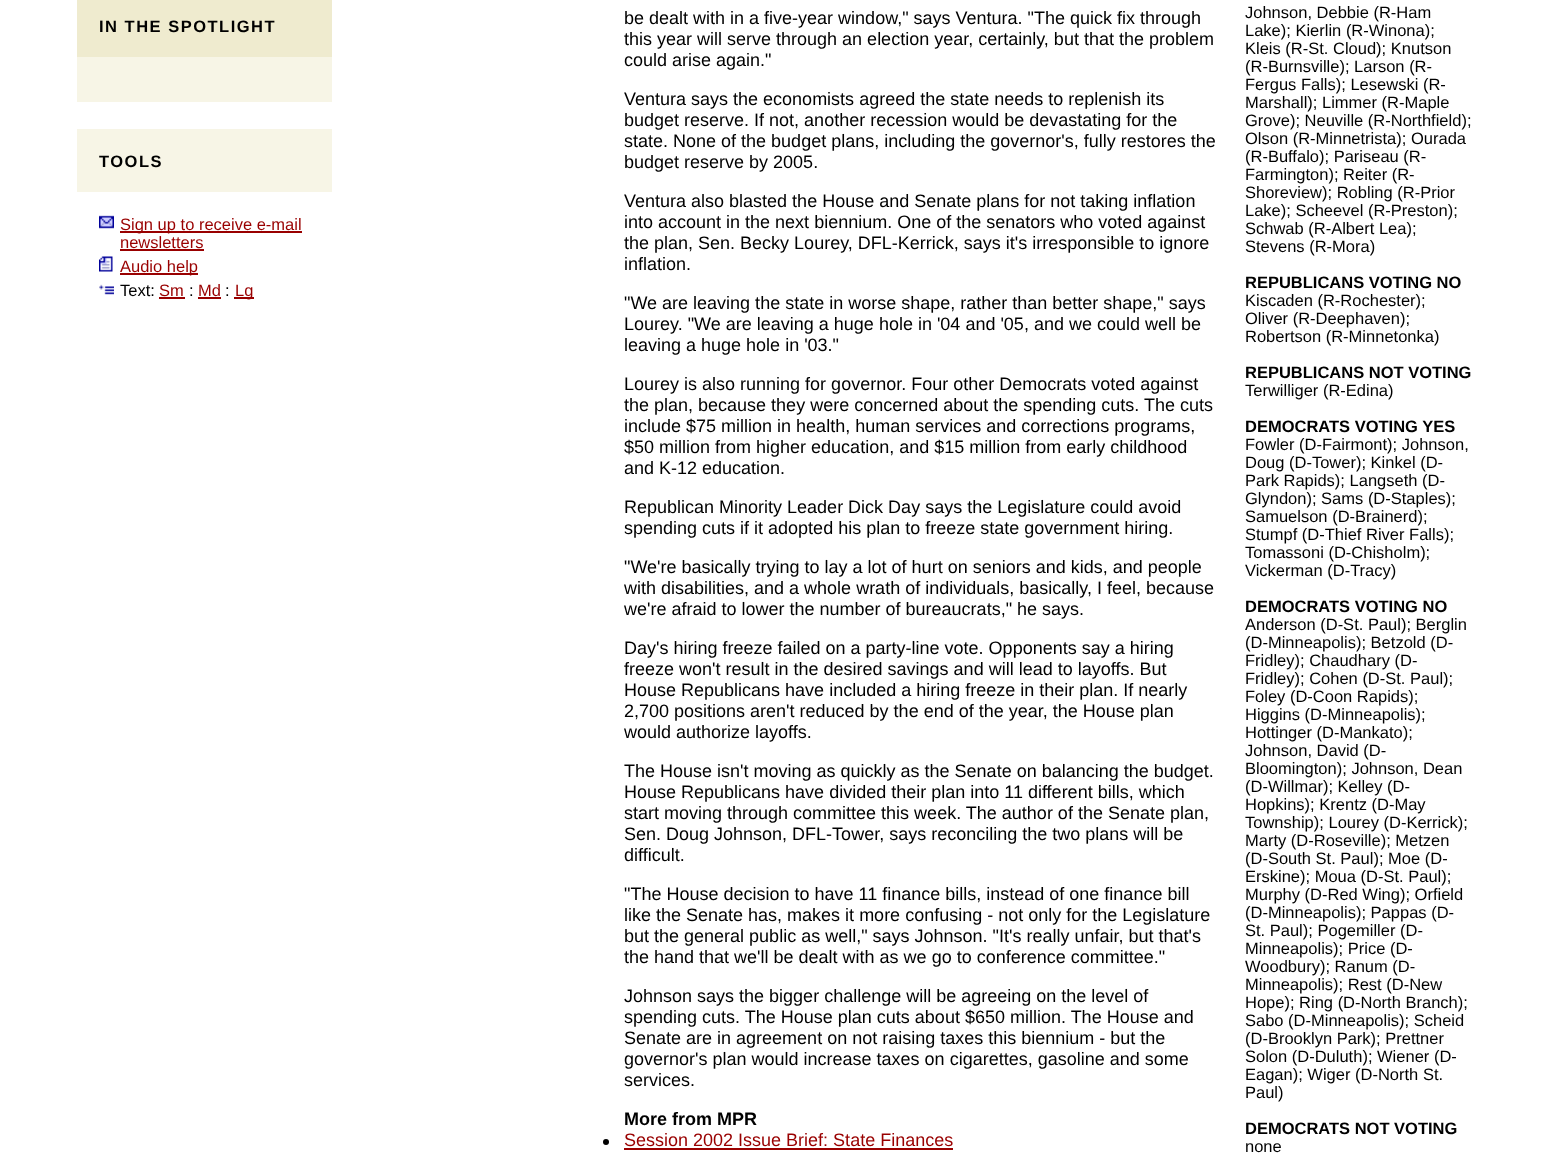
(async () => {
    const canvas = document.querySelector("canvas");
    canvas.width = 1555;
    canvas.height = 1158;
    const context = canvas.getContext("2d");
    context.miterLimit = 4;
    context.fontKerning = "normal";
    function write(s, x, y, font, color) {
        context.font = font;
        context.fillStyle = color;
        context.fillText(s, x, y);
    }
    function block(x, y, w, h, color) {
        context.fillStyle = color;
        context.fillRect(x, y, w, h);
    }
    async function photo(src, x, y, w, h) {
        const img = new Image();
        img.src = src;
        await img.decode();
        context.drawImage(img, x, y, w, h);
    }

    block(0, 0, 1555, 1158, "rgb(255, 255, 255)");
    block(77, 0, 255, 57, "rgb(239, 235, 207)");
    context.letterSpacing = "1.5px";
    write("IN THE SPOTLIGHT", 99, 32, "bold 16.5px Liberation Sans", "rgb(0, 0, 0)");
    block(77, 57, 255, 45, "rgb(247, 245, 230)");
    block(77, 129, 255, 63, "rgb(247, 245, 230)");
    write("TOOLS", 99, 167, "bold 16.5px Liberation Sans", "rgb(0, 0, 0)");
    await photo("media/1.png", 99, 215, 15, 14);
    block(120, 231, 182, 2, "rgb(153, 0, 0)");
    context.letterSpacing = "0px";
    write("Sign up to receive e-mail", 120, 230, "16.5px Liberation Sans", "rgb(153, 0, 0)");
    write("newsletters", 120, 248, "16.5px Liberation Sans", "rgb(153, 0, 0)");
    block(120, 249, 84, 2, "rgb(153, 0, 0)");
    await photo("media/2.png", 99, 256, 14, 16);
    block(120, 273, 78, 2, "rgb(153, 0, 0)");
    write("Audio help", 120, 272, "16.5px Liberation Sans", "rgb(153, 0, 0)");
    await photo("media/3.png", 99, 284, 15, 11);
    write("Text:", 120, 296, "16.5px Liberation Sans", "rgb(0, 0, 0)");
    write("Sm", 159, 296, "16.5px Liberation Sans", "rgb(153, 0, 0)");
    block(159, 297, 26, 2, "rgb(153, 0, 0)");
    write(":", 189, 296, "16.5px Liberation Sans", "rgb(0, 0, 0)");
    write("Md", 198, 296, "16.5px Liberation Sans", "rgb(153, 0, 0)");
    block(198, 297, 23, 2, "rgb(153, 0, 0)");
    write(":", 225, 296, "16.5px Liberation Sans", "rgb(0, 0, 0)");
    block(234, 297, 20, 2, "rgb(153, 0, 0)");
    write("Lg", 235, 296, "16.5px Liberation Sans", "rgb(153, 0, 0)");
    write("be dealt with in a five-year window,\" says Ventura. \"The quick fix through", 624, 24, "18px Liberation Sans", "rgb(0, 0, 0)");
    write("this year will serve through an election year, certainly, but that the problem", 624, 45, "18px Liberation Sans", "rgb(0, 0, 0)");
    write("could arise again.\"", 624, 66, "18px Liberation Sans", "rgb(0, 0, 0)");
    write("Johnson, Debbie (R-Ham", 1245, 18, "16.5px Liberation Sans", "rgb(0, 0, 0)");
    write("Lake); Kierlin (R-Winona);", 1245, 36, "16.5px Liberation Sans", "rgb(0, 0, 0)");
    write("Kleis (R-St. Cloud); Knutson", 1245, 54, "16.5px Liberation Sans", "rgb(0, 0, 0)");
    write("(R-Burnsville); Larson (R-", 1245, 72, "16.5px Liberation Sans", "rgb(0, 0, 0)");
    write("Fergus Falls); Lesewski (R-", 1245, 90, "16.5px Liberation Sans", "rgb(0, 0, 0)");
    write("Marshall); Limmer (R-Maple", 1245, 108, "16.5px Liberation Sans", "rgb(0, 0, 0)");
    write("Grove); Neuville (R-Northfield);", 1245, 126, "16.5px Liberation Sans", "rgb(0, 0, 0)");
    write("Olson (R-Minnetrista); Ourada", 1245, 144, "16.5px Liberation Sans", "rgb(0, 0, 0)");
    write("(R-Buffalo); Pariseau (R-", 1245, 162, "16.5px Liberation Sans", "rgb(0, 0, 0)");
    write("Farmington); Reiter (R-", 1245, 180, "16.5px Liberation Sans", "rgb(0, 0, 0)");
    write("Shoreview); Robling (R-Prior", 1245, 198, "16.5px Liberation Sans", "rgb(0, 0, 0)");
    write("Lake); Scheevel (R-Preston);", 1245, 216, "16.5px Liberation Sans", "rgb(0, 0, 0)");
    write("Schwab (R-Albert Lea);", 1245, 234, "16.5px Liberation Sans", "rgb(0, 0, 0)");
    write("Stevens (R-Mora)", 1245, 252, "16.5px Liberation Sans", "rgb(0, 0, 0)");
    write("REPUBLICANS VOTING NO", 1245, 288, "bold 16.5px Liberation Sans", "rgb(0, 0, 0)");
    write("Kiscaden (R-Rochester);", 1245, 306, "16.5px Liberation Sans", "rgb(0, 0, 0)");
    write("Oliver (R-Deephaven);", 1245, 324, "16.5px Liberation Sans", "rgb(0, 0, 0)");
    write("Robertson (R-Minnetonka)", 1245, 342, "16.5px Liberation Sans", "rgb(0, 0, 0)");
    write("REPUBLICANS NOT VOTING", 1245, 378, "bold 16.5px Liberation Sans", "rgb(0, 0, 0)");
    write("Terwilliger (R-Edina)", 1245, 396, "16.5px Liberation Sans", "rgb(0, 0, 0)");
    write("DEMOCRATS VOTING YES", 1245, 432, "bold 16.5px Liberation Sans", "rgb(0, 0, 0)");
    write("Fowler (D-Fairmont); Johnson,", 1245, 450, "16.5px Liberation Sans", "rgb(0, 0, 0)");
    write("Doug (D-Tower); Kinkel (D-", 1245, 468, "16.5px Liberation Sans", "rgb(0, 0, 0)");
    write("Park Rapids); Langseth (D-", 1245, 486, "16.5px Liberation Sans", "rgb(0, 0, 0)");
    write("Glyndon); Sams (D-Staples);", 1245, 504, "16.5px Liberation Sans", "rgb(0, 0, 0)");
    write("Samuelson (D-Brainerd);", 1245, 522, "16.5px Liberation Sans", "rgb(0, 0, 0)");
    write("Stumpf (D-Thief River Falls);", 1245, 540, "16.5px Liberation Sans", "rgb(0, 0, 0)");
    write("Tomassoni (D-Chisholm);", 1245, 558, "16.5px Liberation Sans", "rgb(0, 0, 0)");
    write("Vickerman (D-Tracy)", 1245, 576, "16.5px Liberation Sans", "rgb(0, 0, 0)");
    write("DEMOCRATS VOTING NO", 1245, 612, "bold 16.5px Liberation Sans", "rgb(0, 0, 0)");
    write("Anderson (D-St. Paul); Berglin", 1245, 630, "16.5px Liberation Sans", "rgb(0, 0, 0)");
    write("(D-Minneapolis); Betzold (D-", 1245, 648, "16.5px Liberation Sans", "rgb(0, 0, 0)");
    write("Fridley); Chaudhary (D-", 1245, 666, "16.5px Liberation Sans", "rgb(0, 0, 0)");
    write("Fridley); Cohen (D-St. Paul);", 1245, 684, "16.5px Liberation Sans", "rgb(0, 0, 0)");
    write("Foley (D-Coon Rapids);", 1245, 702, "16.5px Liberation Sans", "rgb(0, 0, 0)");
    write("Higgins (D-Minneapolis);", 1245, 720, "16.5px Liberation Sans", "rgb(0, 0, 0)");
    write("Hottinger (D-Mankato);", 1245, 738, "16.5px Liberation Sans", "rgb(0, 0, 0)");
    write("Johnson, David (D-", 1245, 756, "16.5px Liberation Sans", "rgb(0, 0, 0)");
    write("Bloomington); Johnson, Dean", 1245, 774, "16.5px Liberation Sans", "rgb(0, 0, 0)");
    write("(D-Willmar); Kelley (D-", 1245, 792, "16.5px Liberation Sans", "rgb(0, 0, 0)");
    write("Hopkins); Krentz (D-May", 1245, 810, "16.5px Liberation Sans", "rgb(0, 0, 0)");
    write("Township); Lourey (D-Kerrick);", 1245, 828, "16.5px Liberation Sans", "rgb(0, 0, 0)");
    write("Marty (D-Roseville); Metzen", 1245, 846, "16.5px Liberation Sans", "rgb(0, 0, 0)");
    write("(D-South St. Paul); Moe (D-", 1245, 864, "16.5px Liberation Sans", "rgb(0, 0, 0)");
    write("Erskine); Moua (D-St. Paul);", 1245, 882, "16.5px Liberation Sans", "rgb(0, 0, 0)");
    write("Murphy (D-Red Wing); Orfield", 1245, 900, "16.5px Liberation Sans", "rgb(0, 0, 0)");
    write("(D-Minneapolis); Pappas (D-", 1245, 918, "16.5px Liberation Sans", "rgb(0, 0, 0)");
    write("St. Paul); Pogemiller (D-", 1245, 936, "16.5px Liberation Sans", "rgb(0, 0, 0)");
    write("Minneapolis); Price (D-", 1245, 954, "16.5px Liberation Sans", "rgb(0, 0, 0)");
    write("Woodbury); Ranum (D-", 1245, 972, "16.5px Liberation Sans", "rgb(0, 0, 0)");
    write("Minneapolis); Rest (D-New", 1245, 990, "16.5px Liberation Sans", "rgb(0, 0, 0)");
    write("Hope); Ring (D-North Branch);", 1245, 1008, "16.5px Liberation Sans", "rgb(0, 0, 0)");
    write("Sabo (D-Minneapolis); Scheid", 1245, 1026, "16.5px Liberation Sans", "rgb(0, 0, 0)");
    write("(D-Brooklyn Park); Prettner", 1245, 1044, "16.5px Liberation Sans", "rgb(0, 0, 0)");
    write("Solon (D-Duluth); Wiener (D-", 1245, 1062, "16.5px Liberation Sans", "rgb(0, 0, 0)");
    write("Eagan); Wiger (D-North St.", 1245, 1080, "16.5px Liberation Sans", "rgb(0, 0, 0)");
    write("Paul)", 1245, 1098, "16.5px Liberation Sans", "rgb(0, 0, 0)");
    write("DEMOCRATS NOT VOTING", 1245, 1134, "bold 16.5px Liberation Sans", "rgb(0, 0, 0)");
    write("none", 1245, 1152, "16.5px Liberation Sans", "rgb(0, 0, 0)");
    write("Ventura says the economists agreed the state needs to replenish its", 624, 105, "18px Liberation Sans", "rgb(0, 0, 0)");
    write("budget reserve. If not, another recession would be devastating for the", 624, 126, "18px Liberation Sans", "rgb(0, 0, 0)");
    write("state. None of the budget plans, including the governor's, fully restores the", 624, 147, "18px Liberation Sans", "rgb(0, 0, 0)");
    write("budget reserve by 2005.", 624, 168, "18px Liberation Sans", "rgb(0, 0, 0)");
    write("Ventura also blasted the House and Senate plans for not taking inflation", 624, 207, "18px Liberation Sans", "rgb(0, 0, 0)");
    write("into account in the next biennium. One of the senators who voted against", 624, 228, "18px Liberation Sans", "rgb(0, 0, 0)");
    write("the plan, Sen. Becky Lourey, DFL-Kerrick, says it's irresponsible to ignore", 624, 249, "18px Liberation Sans", "rgb(0, 0, 0)");
    write("inflation.", 624, 270, "18px Liberation Sans", "rgb(0, 0, 0)");
    write("\"We are leaving the state in worse shape, rather than better shape,\" says", 624, 309, "18px Liberation Sans", "rgb(0, 0, 0)");
    write("Lourey. \"We are leaving a huge hole in '04 and '05, and we could well be", 624, 330, "18px Liberation Sans", "rgb(0, 0, 0)");
    write("leaving a huge hole in '03.\"", 624, 351, "18px Liberation Sans", "rgb(0, 0, 0)");
    write("Lourey is also running for governor. Four other Democrats voted against", 624, 390, "18px Liberation Sans", "rgb(0, 0, 0)");
    write("the plan, because they were concerned about the spending cuts. The cuts", 624, 411, "18px Liberation Sans", "rgb(0, 0, 0)");
    write("include $75 million in health, human services and corrections programs,", 624, 432, "18px Liberation Sans", "rgb(0, 0, 0)");
    write("$50 million from higher education, and $15 million from early childhood", 624, 453, "18px Liberation Sans", "rgb(0, 0, 0)");
    write("and K-12 education.", 624, 474, "18px Liberation Sans", "rgb(0, 0, 0)");
    write("Republican Minority Leader Dick Day says the Legislature could avoid", 624, 513, "18px Liberation Sans", "rgb(0, 0, 0)");
    write("spending cuts if it adopted his plan to freeze state government hiring.", 624, 534, "18px Liberation Sans", "rgb(0, 0, 0)");
    write("\"We're basically trying to lay a lot of hurt on seniors and kids, and people", 624, 573, "18px Liberation Sans", "rgb(0, 0, 0)");
    write("with disabilities, and a whole wrath of individuals, basically, I feel, because", 624, 594, "18px Liberation Sans", "rgb(0, 0, 0)");
    write("we're afraid to lower the number of bureaucrats,\" he says.", 624, 615, "18px Liberation Sans", "rgb(0, 0, 0)");
    write("Day's hiring freeze failed on a party-line vote. Opponents say a hiring", 624, 654, "18px Liberation Sans", "rgb(0, 0, 0)");
    write("freeze won't result in the desired savings and will lead to layoffs. But", 624, 675, "18px Liberation Sans", "rgb(0, 0, 0)");
    write("House Republicans have included a hiring freeze in their plan. If nearly", 624, 696, "18px Liberation Sans", "rgb(0, 0, 0)");
    write("2,700 positions aren't reduced by the end of the year, the House plan", 624, 717, "18px Liberation Sans", "rgb(0, 0, 0)");
    write("would authorize layoffs.", 624, 738, "18px Liberation Sans", "rgb(0, 0, 0)");
    write("The House isn't moving as quickly as the Senate on balancing the budget.", 624, 777, "18px Liberation Sans", "rgb(0, 0, 0)");
    write("House Republicans have divided their plan into 11 different bills, which", 624, 798, "18px Liberation Sans", "rgb(0, 0, 0)");
    write("start moving through committee this week. The author of the Senate plan,", 624, 819, "18px Liberation Sans", "rgb(0, 0, 0)");
    write("Sen. Doug Johnson, DFL-Tower, says reconciling the two plans will be", 624, 840, "18px Liberation Sans", "rgb(0, 0, 0)");
    write("difficult.", 624, 861, "18px Liberation Sans", "rgb(0, 0, 0)");
    write("\"The House decision to have 11 finance bills, instead of one finance bill", 624, 900, "18px Liberation Sans", "rgb(0, 0, 0)");
    write("like the Senate has, makes it more confusing - not only for the Legislature", 624, 921, "18px Liberation Sans", "rgb(0, 0, 0)");
    write("but the general public as well,\" says Johnson. \"It's really unfair, but that's", 624, 942, "18px Liberation Sans", "rgb(0, 0, 0)");
    write("the hand that we'll be dealt with as we go to conference committee.\"", 624, 963, "18px Liberation Sans", "rgb(0, 0, 0)");
    write("Johnson says the bigger challenge will be agreeing on the level of", 624, 1002, "18px Liberation Sans", "rgb(0, 0, 0)");
    write("spending cuts. The House plan cuts about $650 million. The House and", 624, 1023, "18px Liberation Sans", "rgb(0, 0, 0)");
    write("Senate are in agreement on not raising taxes this biennium - but the", 624, 1044, "18px Liberation Sans", "rgb(0, 0, 0)");
    write("governor's plan would increase taxes on cigarettes, gasoline and some", 624, 1065, "18px Liberation Sans", "rgb(0, 0, 0)");
    write("services.", 624, 1086, "18px Liberation Sans", "rgb(0, 0, 0)");
    write("More from MPR", 624, 1125, "bold 18px Liberation Sans", "rgb(0, 0, 0)");
    context.beginPath();
    context.arc(606, 1142, 3, 0, Math.PI * 2);
    context.fill();
    write("Session 2002 Issue Brief: State Finances", 624, 1146, "18px Liberation Sans", "rgb(153, 0, 0)");
    block(624, 1148, 329, 2, "rgb(153, 0, 0)");
})();
